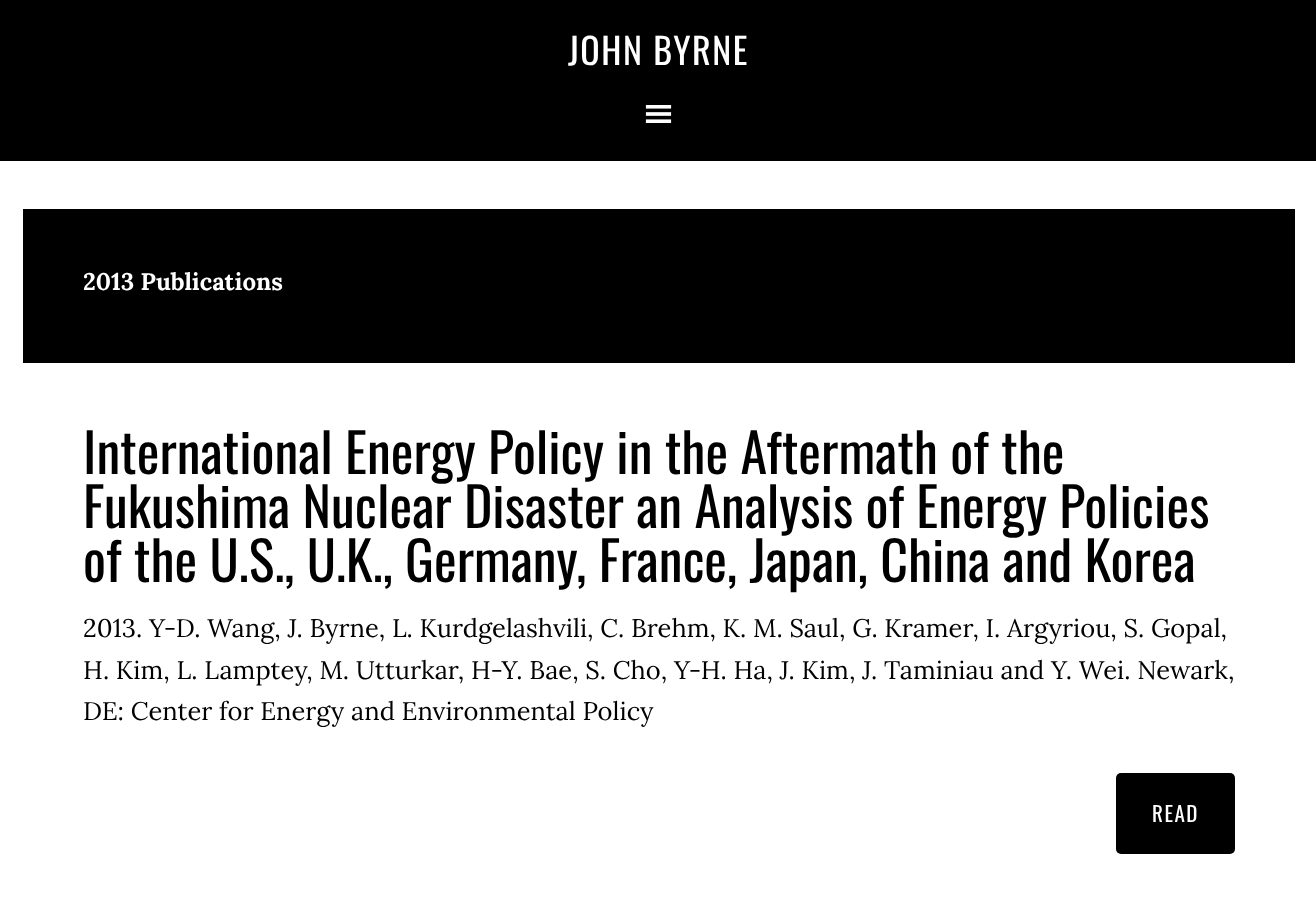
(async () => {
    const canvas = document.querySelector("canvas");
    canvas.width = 1316;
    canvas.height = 915;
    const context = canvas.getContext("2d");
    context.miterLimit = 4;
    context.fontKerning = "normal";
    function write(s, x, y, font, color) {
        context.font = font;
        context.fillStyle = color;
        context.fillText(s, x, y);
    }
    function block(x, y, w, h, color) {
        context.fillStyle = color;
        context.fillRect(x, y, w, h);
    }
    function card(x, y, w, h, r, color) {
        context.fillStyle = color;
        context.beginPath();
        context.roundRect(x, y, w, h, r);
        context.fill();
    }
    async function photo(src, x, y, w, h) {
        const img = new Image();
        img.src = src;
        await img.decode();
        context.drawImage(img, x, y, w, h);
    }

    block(0, 0, 1316, 915, "rgb(255, 255, 255)");
    block(0, 0, 1316, 161, "rgb(0, 0, 0)");
    context.letterSpacing = "1.5px";
    write("JOHN BYRNE", 568, 65, "36px Oswald", "rgb(255, 255, 255)");
    await photo("media/1.png", 645, 105, 27, 18);
    block(23, 209, 1272, 154, "rgb(0, 0, 0)");
    context.letterSpacing = "0px";
    write("2013 Publications", 83, 290, "bold 24px Lora", "rgb(255, 255, 255)");
    write("International Energy Policy in the Aftermath of the", 83, 474, "54px Oswald", "rgb(0, 0, 0)");
    write("Fukushima Nuclear Disaster an Analysis of Energy Policies", 83, 528, "54px Oswald", "rgb(0, 0, 0)");
    write("of the U.S., U.K., Germany, France, Japan, China and Korea", 83, 582, "54px Oswald", "rgb(0, 0, 0)");
    write("2013. Y-D. Wang, J. Byrne, L. Kurdgelashvili, C. Brehm, K. M. Saul, G. Kramer, I. Argyriou, S. Gopal,", 83, 637, "25.5px Lora", "rgb(0, 0, 0)");
    write("H. Kim, L. Lamptey, M. Utturkar, H-Y. Bae, S. Cho, Y-H. Ha, J. Kim, J. Taminiau and Y. Wei. Newark,", 83, 679, "25.5px Lora", "rgb(0, 0, 0)");
    write("DE: Center for Energy and Environmental Policy", 83, 720, "25.5px Lora", "rgb(0, 0, 0)");
    card(1116, 773, 119, 81, 5, "rgb(0, 0, 0)");
    context.letterSpacing = "1.5px";
    write("READ", 1152, 822, "21px Oswald", "rgb(255, 255, 255)");
})();
